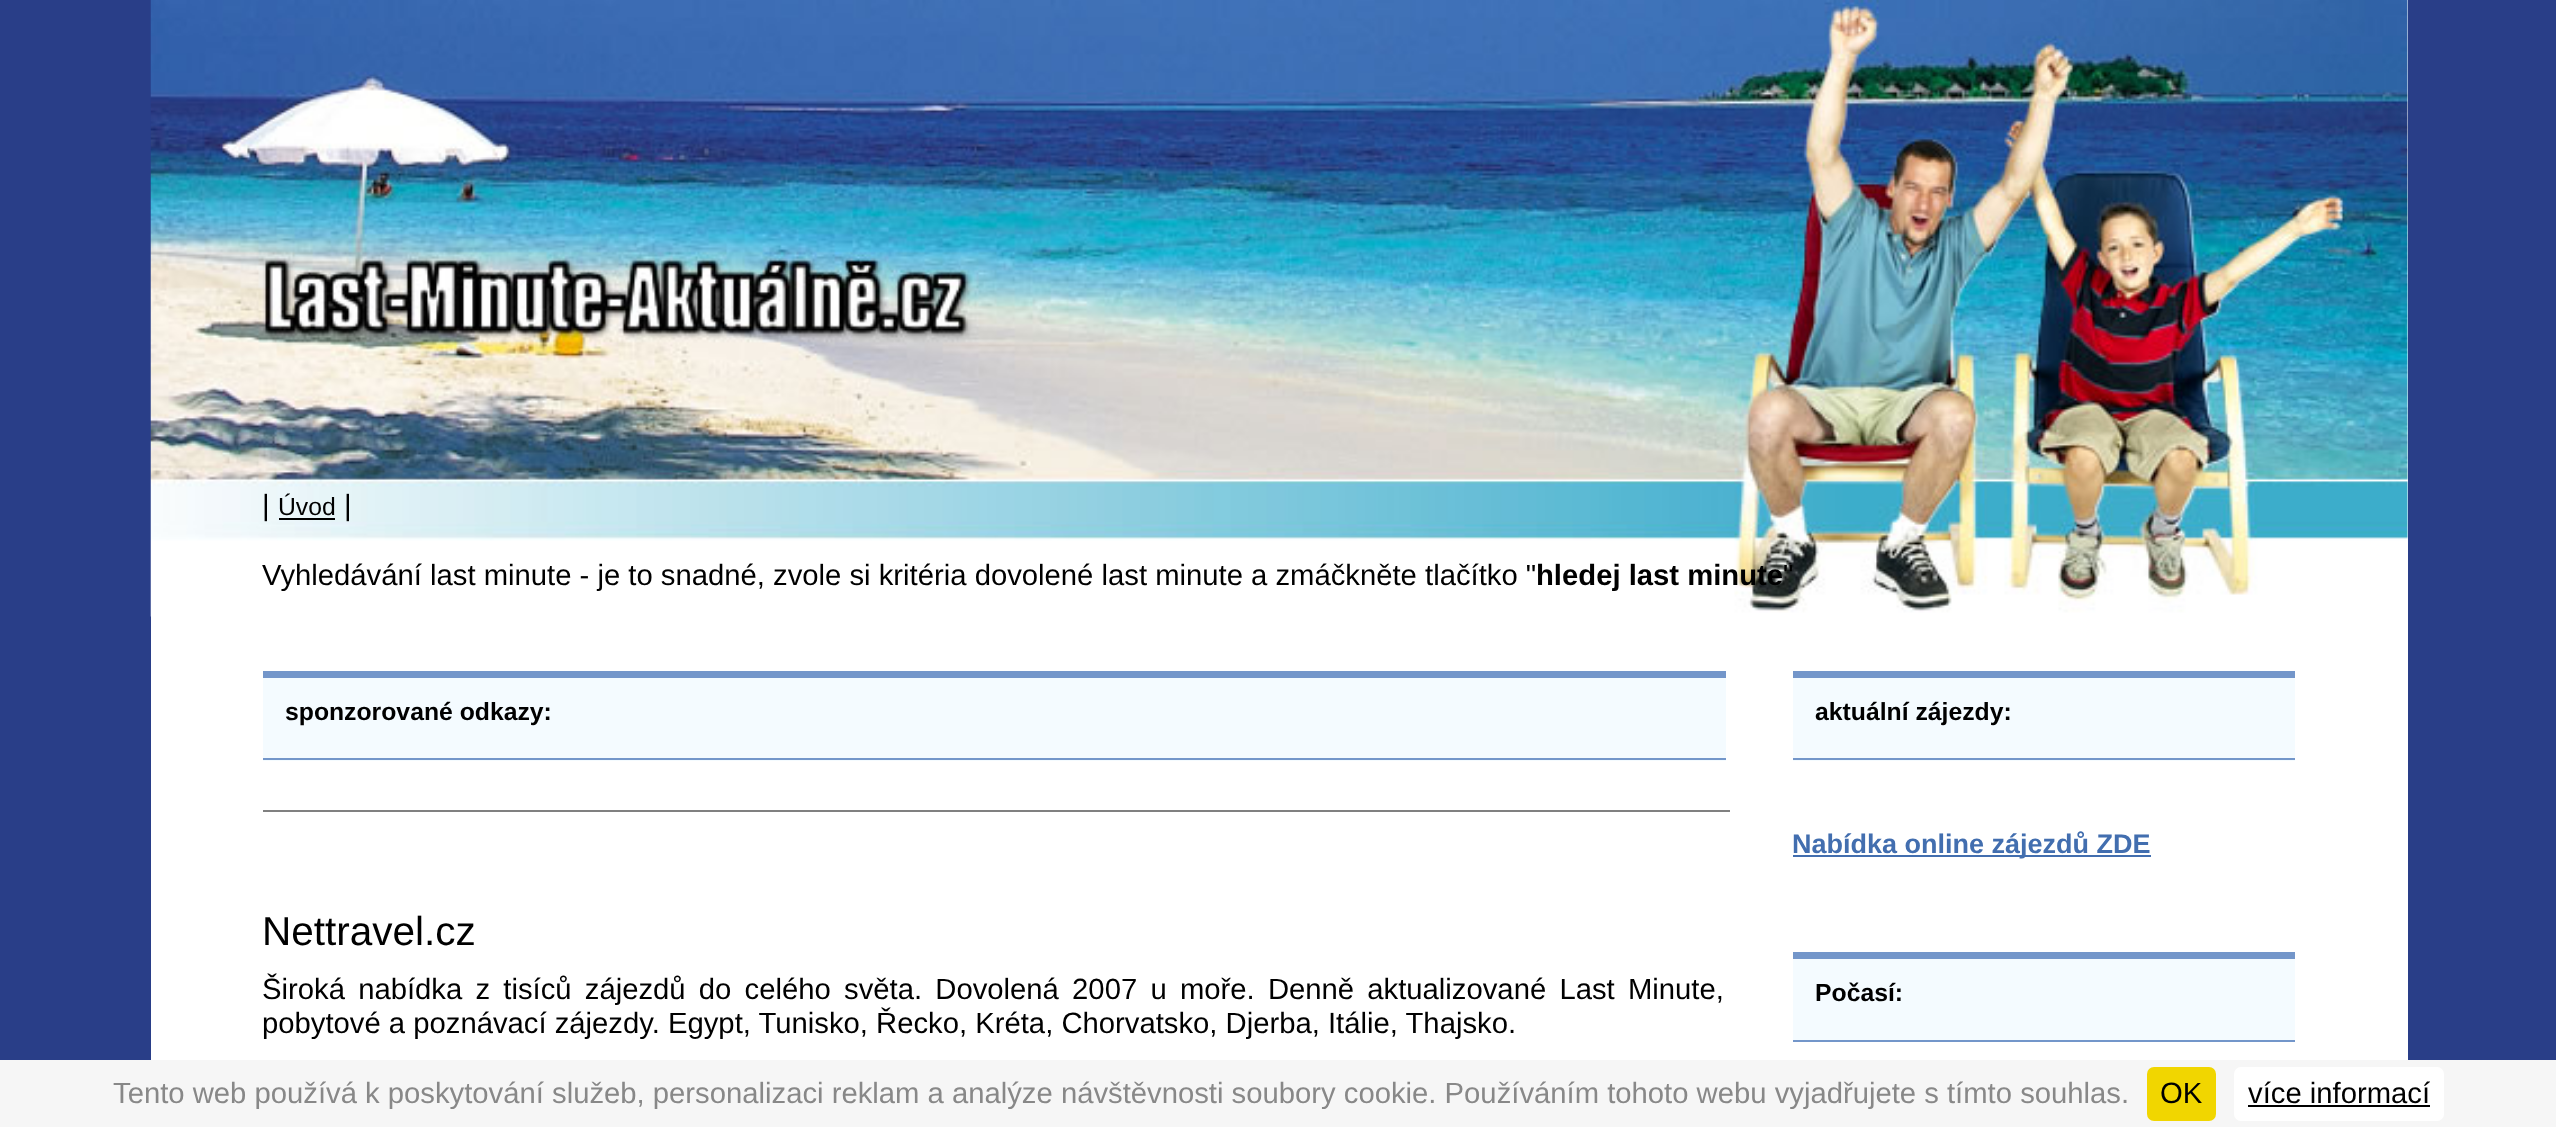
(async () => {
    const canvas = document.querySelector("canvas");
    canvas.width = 2556;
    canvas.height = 1127;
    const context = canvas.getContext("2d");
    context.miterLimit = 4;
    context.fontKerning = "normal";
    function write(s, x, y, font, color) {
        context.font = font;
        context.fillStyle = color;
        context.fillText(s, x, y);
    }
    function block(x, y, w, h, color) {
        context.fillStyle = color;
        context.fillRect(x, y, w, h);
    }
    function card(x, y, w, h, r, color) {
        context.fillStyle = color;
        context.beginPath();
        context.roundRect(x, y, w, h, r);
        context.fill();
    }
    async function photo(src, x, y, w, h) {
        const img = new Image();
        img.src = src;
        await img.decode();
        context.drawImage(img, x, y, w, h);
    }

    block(0, 0, 2556, 1127, "rgb(41, 62, 136)");
    block(151, 0, 2257, 1060, "rgb(255, 255, 255)");
    await photo("media/1.png", 150, 0, 2258, 617);
    write("|", 262, 515, "29.25px Liberation Sans", "rgb(0, 0, 0)");
    write("Úvod", 278, 515, "24.75px Liberation Sans", "rgb(0, 0, 0)");
    block(279, 518, 56, 2, "rgb(0, 0, 0)");
    write("|", 344, 515, "29.25px Liberation Sans", "rgb(0, 0, 0)");
    write("Vyhledávání last minute - je to snadné, zvole si kritéria dovolené last minute a zmáčkněte tlačítko \"", 262, 585, "29.25px Liberation Sans", "rgb(0, 0, 0)");
    write("hledej last minute", 1536, 585, "bold 29.25px Liberation Sans", "rgb(0, 0, 0)");
    write("\"", 1783, 585, "29.25px Liberation Sans", "rgb(0, 0, 0)");
    block(263, 678, 1463, 83, "rgb(244, 251, 255)");
    block(263, 671, 1463, 7, "rgb(115, 150, 202)");
    block(263, 758, 1463, 2, "rgb(115, 150, 202)");
    write("sponzorované odkazy:", 285, 720, "bold 24.75px Liberation Sans", "rgb(0, 0, 0)");
    block(263, 810, 1467, 2, "rgb(128, 128, 128)");
    write("Nettravel.cz", 262, 945, "40.5px Liberation Sans", "rgb(0, 0, 0)");
    context.wordSpacing = "5.1px";
    write("Široká nabídka z tisíců zájezdů do celého světa. Dovolená 2007 u moře. Denně aktualizované Last Minute,", 262, 999, "29.25px Liberation Sans", "rgb(0, 0, 0)");
    context.wordSpacing = "0px";
    write("pobytové a poznávací zájezdy. Egypt, Tunisko, Řecko, Kréta, Chorvatsko, Djerba, Itálie, Thajsko.", 262, 1033, "29.25px Liberation Sans", "rgb(0, 0, 0)");
    block(1793, 678, 502, 83, "rgb(244, 251, 255)");
    block(1793, 671, 502, 7, "rgb(115, 150, 202)");
    block(1793, 758, 502, 2, "rgb(115, 150, 202)");
    write("aktuální zájezdy:", 1815, 720, "bold 24.75px Liberation Sans", "rgb(0, 0, 0)");
    block(1793, 855, 358, 2, "rgb(66, 110, 175)");
    write("Nabídka online zájezdů ZDE", 1792, 853, "bold 27px Liberation Sans", "rgb(66, 110, 175)");
    block(1793, 959, 502, 81, "rgb(244, 251, 255)");
    block(1793, 952, 502, 7, "rgb(115, 150, 202)");
    block(1793, 1040, 502, 2, "rgb(115, 150, 202)");
    write("Počasí:", 1815, 1001, "bold 24.75px Liberation Sans", "rgb(0, 0, 0)");
    block(0, 1060, 2556, 67, "rgb(246, 246, 246)");
    write("Tento web používá k poskytování služeb, personalizaci reklam a analýze návštěvnosti soubory cookie. Používáním tohoto webu vyjadřujete s tímto souhlas.", 113, 1103, "29.25px Liberation Sans", "rgb(136, 136, 136)");
    card(2147, 1067, 69, 54, 7, "rgb(241, 214, 0)");
    write("OK", 2160, 1103, "29.25px Liberation Sans", "rgb(0, 0, 0)");
    card(2234, 1067, 210, 54, 7, "rgb(255, 255, 255)");
    write("více informací", 2248, 1103, "29.25px Liberation Sans", "rgb(0, 0, 0)");
    block(2248, 1105, 182, 2, "rgb(0, 0, 0)");
})();
